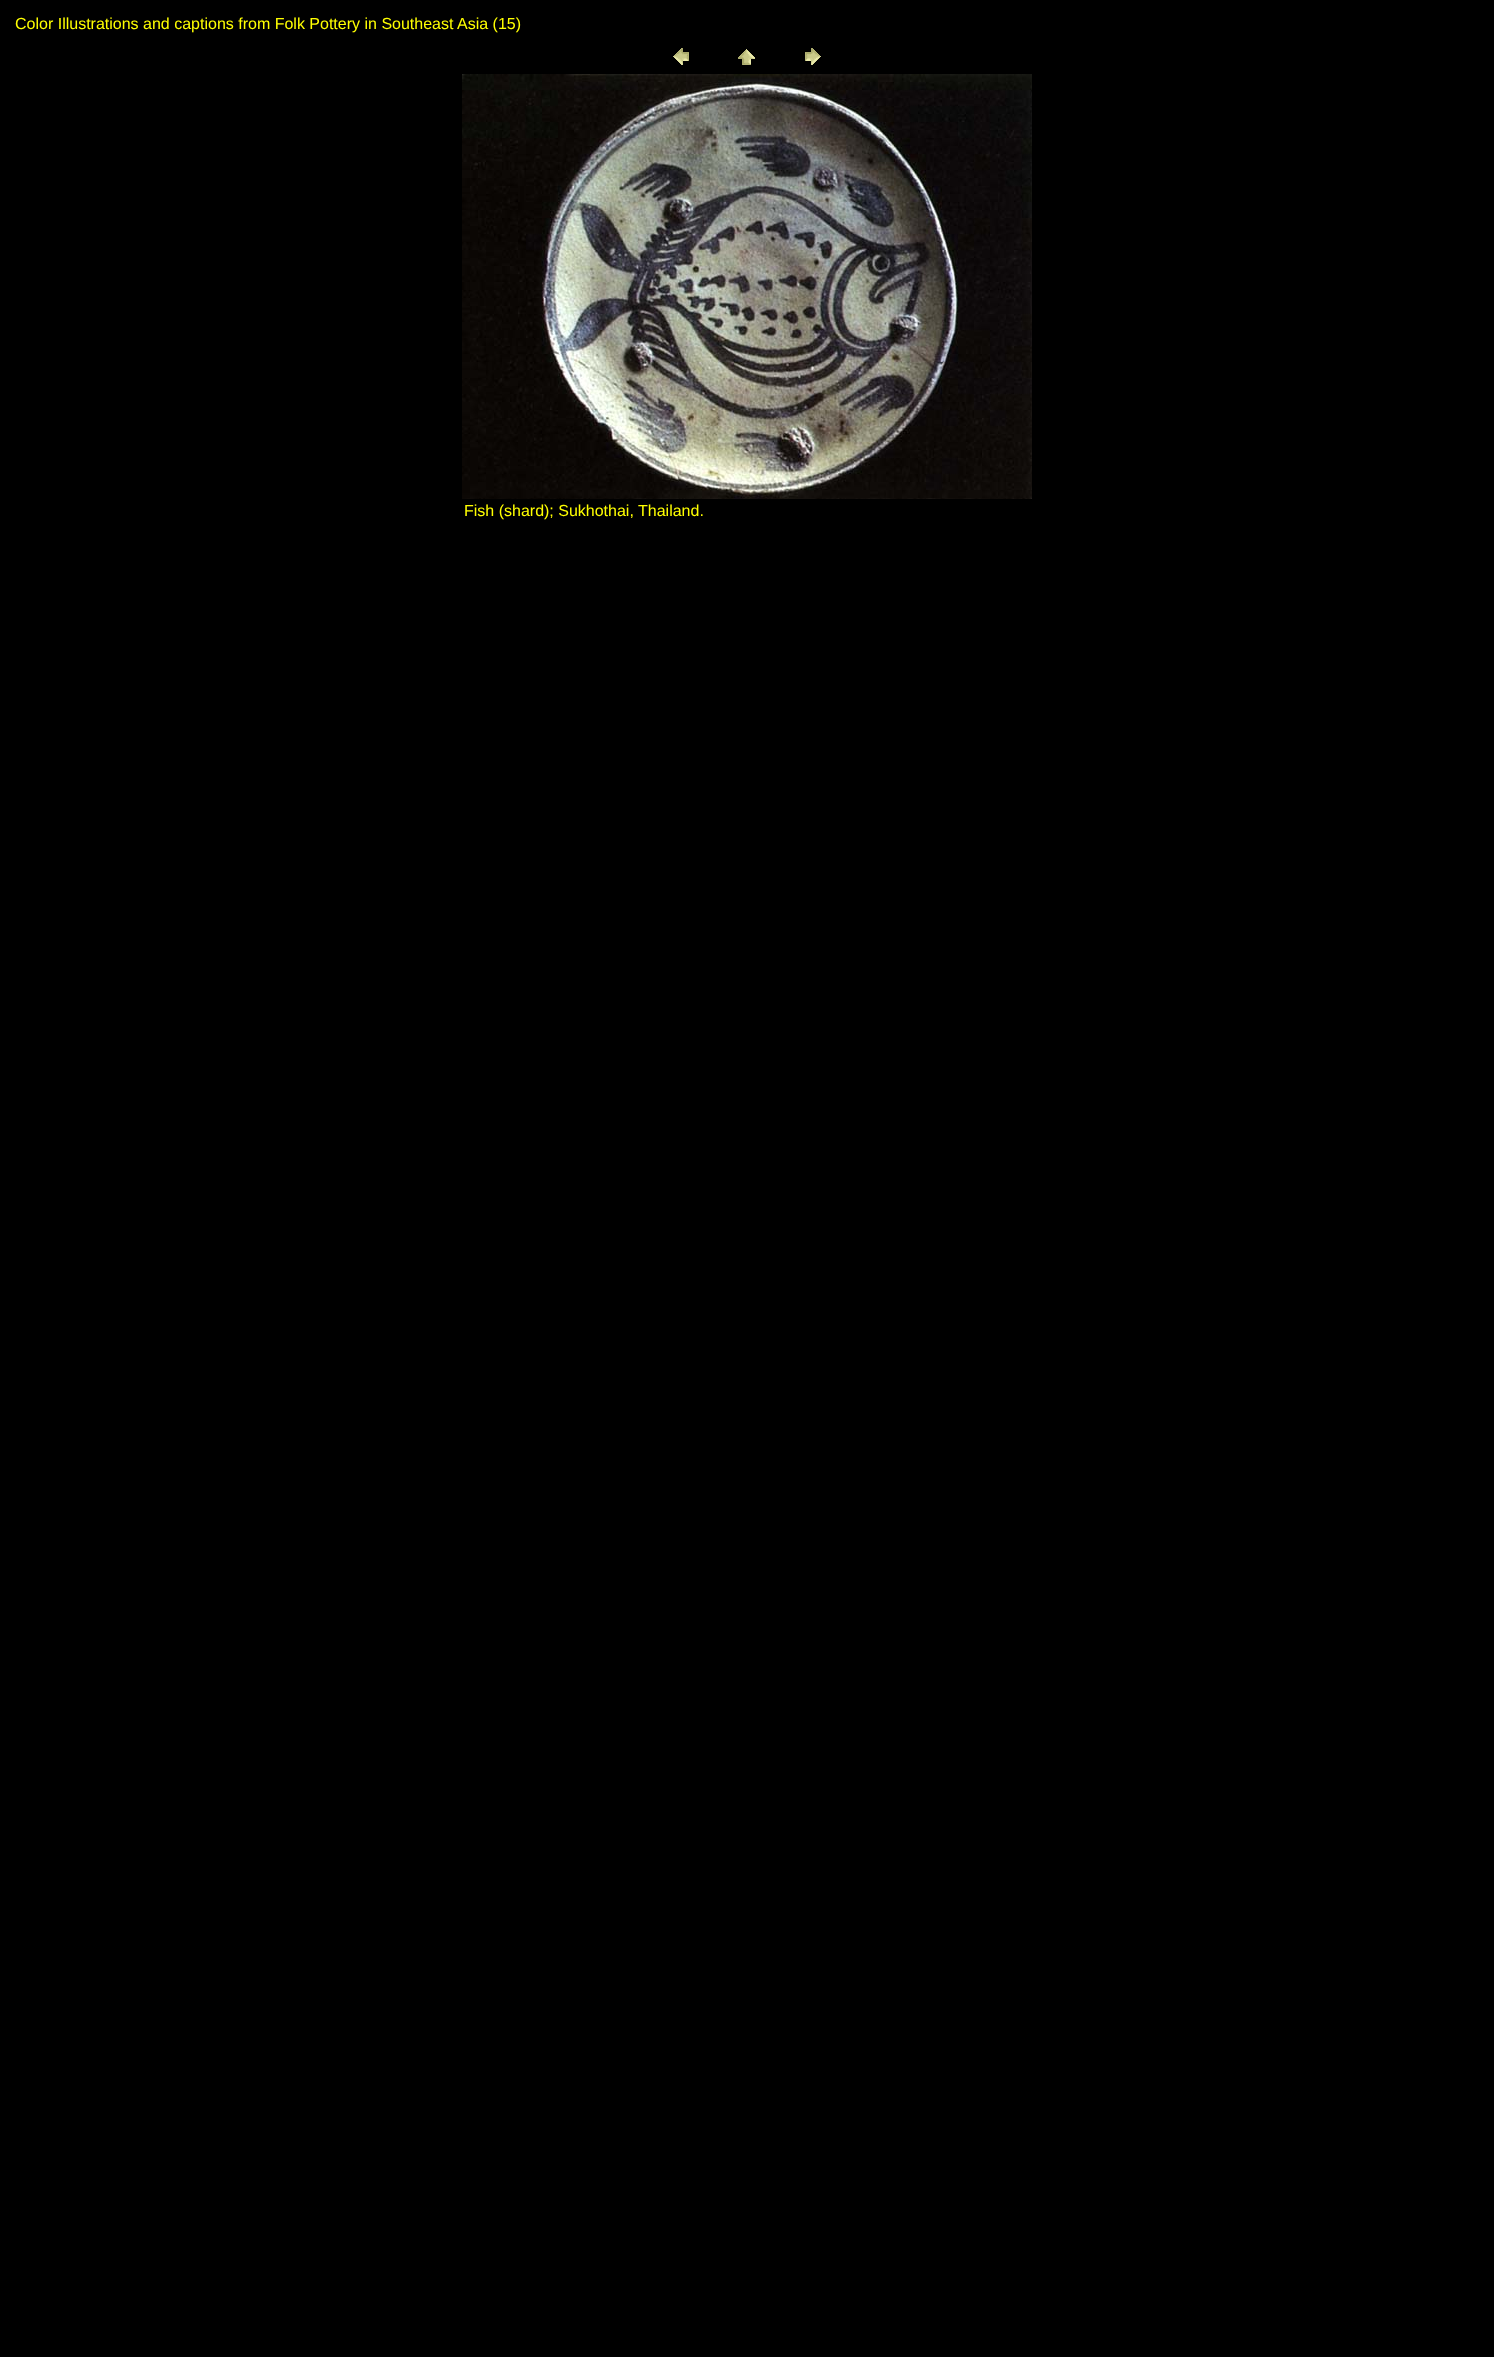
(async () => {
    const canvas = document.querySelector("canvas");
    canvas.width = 1494;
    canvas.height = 2357;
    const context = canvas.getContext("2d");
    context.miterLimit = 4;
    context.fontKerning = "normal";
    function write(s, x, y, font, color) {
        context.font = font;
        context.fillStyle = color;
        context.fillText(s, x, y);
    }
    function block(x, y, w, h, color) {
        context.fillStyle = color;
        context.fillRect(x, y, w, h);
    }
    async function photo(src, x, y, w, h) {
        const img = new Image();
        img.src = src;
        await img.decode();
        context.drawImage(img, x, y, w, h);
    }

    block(0, 0, 1494, 2357, "rgb(0, 0, 0)");
    write("Color Illustrations and captions from Folk Pottery in Southeast Asia (15)", 15, 29, "16px Liberation Sans", "rgb(255, 255, 0)");
    await photo("media/1.png", 673, 48, 16, 17);
    await photo("media/2.png", 738, 49, 17, 16);
    await photo("media/3.png", 805, 48, 16, 17);
    await photo("media/4.png", 462, 74, 570, 425);
    write("Fish (shard); Sukhothai, Thailand.", 464, 516, "16px Liberation Sans", "rgb(255, 255, 0)");
})();
